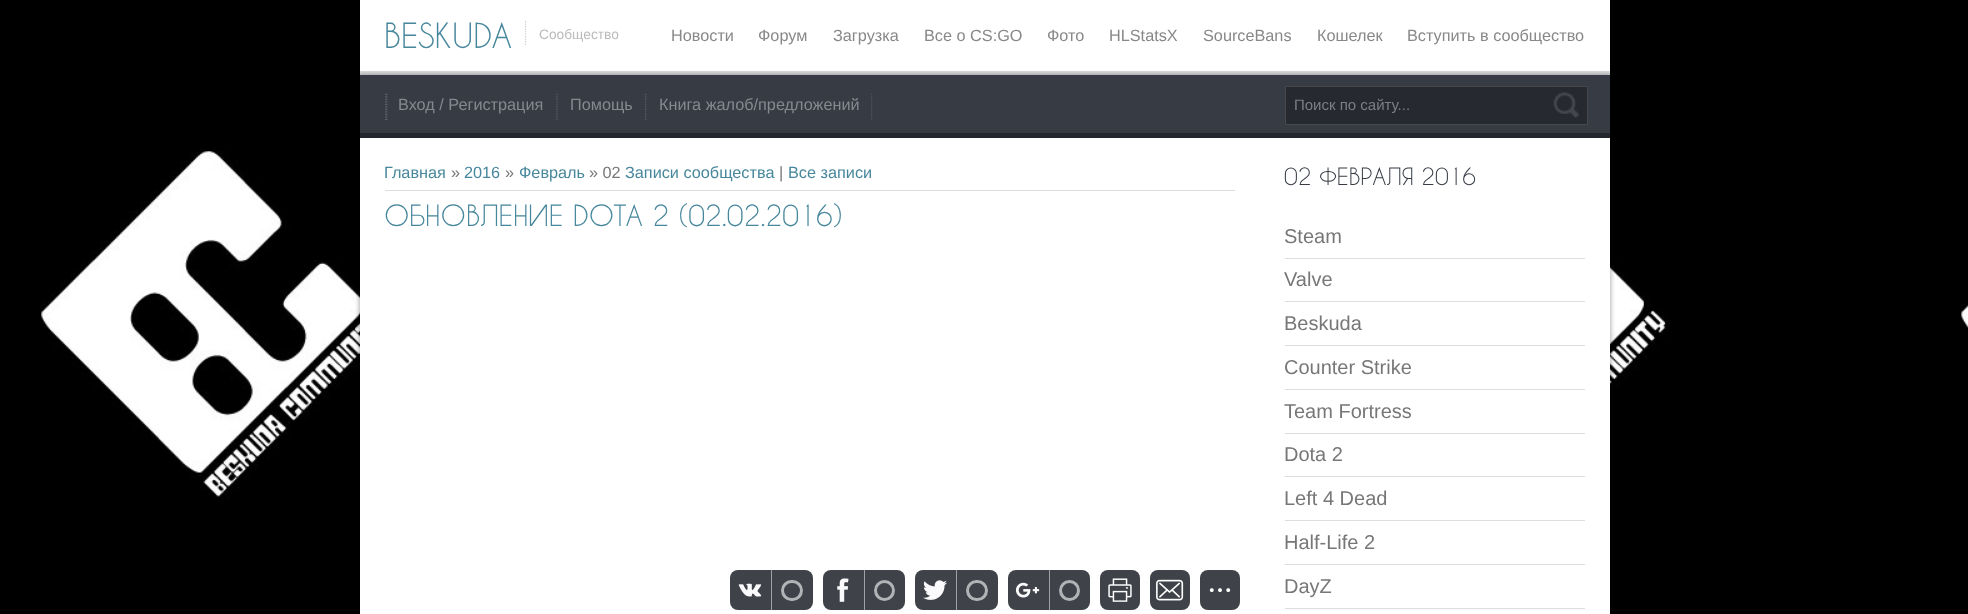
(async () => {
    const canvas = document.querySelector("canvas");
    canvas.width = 1968;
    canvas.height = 614;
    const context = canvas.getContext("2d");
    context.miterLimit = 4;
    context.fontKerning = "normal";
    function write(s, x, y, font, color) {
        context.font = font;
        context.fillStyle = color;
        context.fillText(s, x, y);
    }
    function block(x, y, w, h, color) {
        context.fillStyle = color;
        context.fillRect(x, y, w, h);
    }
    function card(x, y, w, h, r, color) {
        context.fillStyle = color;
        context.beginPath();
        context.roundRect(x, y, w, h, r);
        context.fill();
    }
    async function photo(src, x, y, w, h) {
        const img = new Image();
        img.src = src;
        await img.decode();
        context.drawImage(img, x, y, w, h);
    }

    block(0, 0, 1968, 614, "rgb(0, 0, 0)");
    await photo("media/1.png", 40, 151, 1928, 349);
    block(360, 71, 1250, 4, "rgb(221, 221, 221)");
    block(360, 0, 1250, 71, "rgb(255, 255, 255)");
    write("BESKUDA", 384, 48, "32.5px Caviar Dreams", "rgb(71, 135, 156)");
    context.beginPath();
    context.moveTo(525.5, 21);
    context.lineTo(525.5, 46);
    context.strokeStyle = "rgb(204, 204, 204)";
    context.lineWidth = 1.2;
    context.setLineDash([1.25, 1.25]);
    context.stroke();
    write("Сообщество", 539, 39, "13.75px Liberation Sans", "rgb(187, 187, 187)");
    write("Новости", 671, 41, "16.25px Liberation Sans", "rgb(136, 136, 136)");
    write("Форум", 758, 41, "16.25px Liberation Sans", "rgb(136, 136, 136)");
    write("Загрузка", 833, 41, "16.25px Liberation Sans", "rgb(136, 136, 136)");
    write("Все о CS:GO", 924, 41, "16.25px Liberation Sans", "rgb(136, 136, 136)");
    write("Фото", 1047, 41, "16.25px Liberation Sans", "rgb(136, 136, 136)");
    write("HLStatsX", 1109, 41, "16.25px Liberation Sans", "rgb(136, 136, 136)");
    write("SourceBans", 1203, 41, "16.25px Liberation Sans", "rgb(136, 136, 136)");
    write("Кошелек", 1317, 41, "16.25px Liberation Sans", "rgb(136, 136, 136)");
    write("Вступить в сообщество", 1407, 41, "16.25px Liberation Sans", "rgb(136, 136, 136)");
    context.fillStyle = "rgba(0, 0, 0, 0.3)";
    context.filter = "blur(2px)";
    context.beginPath();
    context.rect(359, 74, 1252, 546);
    context.fill();
    context.filter = "none";
    block(360, 138, 1250, 476, "rgb(255, 255, 255)");
    block(360, 75, 1250, 58, "rgb(54, 59, 68)");
    block(360, 133, 1250, 5, "rgb(36, 40, 46)");
    await photo("media/2.png", 385, 93, 3, 28);
    await photo("media/3.png", 556, 93, 2, 27);
    write("Вход / Регистрация", 398, 110, "16.25px Liberation Sans", "rgb(134, 137, 143)");
    await photo("media/4.png", 645, 93, 2, 28);
    write("Помощь", 570, 110, "16.25px Liberation Sans", "rgb(134, 137, 143)");
    await photo("media/5.png", 871, 93, 2, 27);
    write("Книга жалоб/предложений", 659, 110, "16.25px Liberation Sans", "rgb(134, 137, 143)");
    context.fillStyle = "rgb(38, 41, 48)";
    context.beginPath();
    context.rect(1285.5, 86.5, 302, 38);
    context.fill();
    context.strokeStyle = "rgb(71, 73, 79)";
    context.lineWidth = 1;
    context.setLineDash([]);
    context.stroke();
    write("Поиск по сайту...", 1294, 110, "15px Liberation Sans", "rgb(125, 127, 131)");
    await photo("media/6.png", 1553, 92, 26, 26);
    write("Главная", 384, 178, "16.25px Liberation Sans", "rgb(71, 135, 156)");
    write("»", 451, 178, "16.25px Liberation Sans", "rgb(119, 119, 119)");
    write("2016", 464, 178, "16.25px Liberation Sans", "rgb(71, 135, 156)");
    write("»", 505, 178, "16.25px Liberation Sans", "rgb(119, 119, 119)");
    write("Февраль", 519, 178, "16.25px Liberation Sans", "rgb(71, 135, 156)");
    write("» 02", 589, 178, "16.25px Liberation Sans", "rgb(119, 119, 119)");
    write("Записи сообщества", 625, 178, "16.25px Liberation Sans", "rgb(71, 135, 156)");
    write("|", 779, 178, "16.25px Liberation Sans", "rgb(119, 119, 119)");
    write("Все записи", 788, 178, "16.25px Liberation Sans", "rgb(71, 135, 156)");
    block(385, 190, 850, 1, "rgb(221, 221, 221)");
    write("ОБНОВЛЕНИЕ DOTA 2 (02.02.2016)", 384, 226, "27.5px Caviar Dreams", "rgb(71, 135, 156)");
    write("02 ФЕВРАЛЯ 2016", 1284, 185, "22.5px Caviar Dreams", "rgb(54, 59, 68)");
    block(1285, 258, 300, 1, "rgb(221, 221, 221)");
    write("Steam", 1284, 243, "20px Liberation Sans", "rgb(119, 119, 119)");
    block(1285, 301, 300, 1, "rgb(221, 221, 221)");
    write("Valve", 1284, 286, "20px Liberation Sans", "rgb(119, 119, 119)");
    block(1285, 345, 300, 1, "rgb(221, 221, 221)");
    write("Beskuda", 1284, 330, "20px Liberation Sans", "rgb(119, 119, 119)");
    block(1285, 389, 300, 1, "rgb(221, 221, 221)");
    write("Counter Strike", 1284, 374, "20px Liberation Sans", "rgb(119, 119, 119)");
    block(1285, 433, 300, 1, "rgb(221, 221, 221)");
    write("Team Fortress", 1284, 418, "20px Liberation Sans", "rgb(119, 119, 119)");
    block(1285, 476, 300, 1, "rgb(221, 221, 221)");
    write("Dota 2", 1284, 461, "20px Liberation Sans", "rgb(119, 119, 119)");
    block(1285, 520, 300, 1, "rgb(221, 221, 221)");
    write("Left 4 Dead", 1284, 505, "20px Liberation Sans", "rgb(119, 119, 119)");
    block(1285, 564, 300, 1, "rgb(221, 221, 221)");
    write("Half-Life 2", 1284, 549, "20px Liberation Sans", "rgb(119, 119, 119)");
    block(1285, 608, 300, 1, "rgb(221, 221, 221)");
    write("DayZ", 1284, 593, "20px Liberation Sans", "rgb(119, 119, 119)");
    card(730, 570, 83, 40, 8, "rgb(63, 66, 72)");
    await photo("media/7.png", 738, 583, 24, 14);
    block(771, 570, 1, 40, "rgb(159, 161, 164)");
    context.beginPath();
    context.roundRect(782.5, 581.5, 19, 18, 9);
    context.strokeStyle = "rgb(178, 179, 182)";
    context.lineWidth = 3;
    context.stroke();
    card(823, 570, 82, 40, 8, "rgb(63, 66, 72)");
    await photo("media/8.png", 837, 578, 12, 24);
    block(864, 570, 1, 40, "rgb(159, 161, 164)");
    context.beginPath();
    context.arc(884.5, 590.5, 9, 0, Math.PI * 2);
    context.stroke();
    card(915, 570, 83, 40, 8, "rgb(63, 66, 72)");
    await photo("media/9.png", 923, 580, 24, 20);
    block(956, 570, 1, 40, "rgb(159, 161, 164)");
    context.beginPath();
    context.roundRect(967.5, 581.5, 19, 18, 9);
    context.stroke();
    card(1008, 570, 82, 40, 8, "rgb(63, 66, 72)");
    await photo("media/10.png", 1015, 582, 25, 16);
    block(1049, 570, 1, 40, "rgb(159, 161, 164)");
    context.beginPath();
    context.arc(1069.5, 590.5, 9, 0, Math.PI * 2);
    context.stroke();
    card(1100, 570, 40, 40, 8, "rgb(63, 66, 72)");
    await photo("media/11.png", 1108, 578, 24, 24);
    card(1150, 570, 40, 40, 8, "rgb(63, 66, 72)");
    await photo("media/12.png", 1156, 579, 28, 22);
    card(1200, 570, 40, 40, 8, "rgb(63, 66, 72)");
    await photo("media/13.png", 1209, 588, 22, 5);
})();
